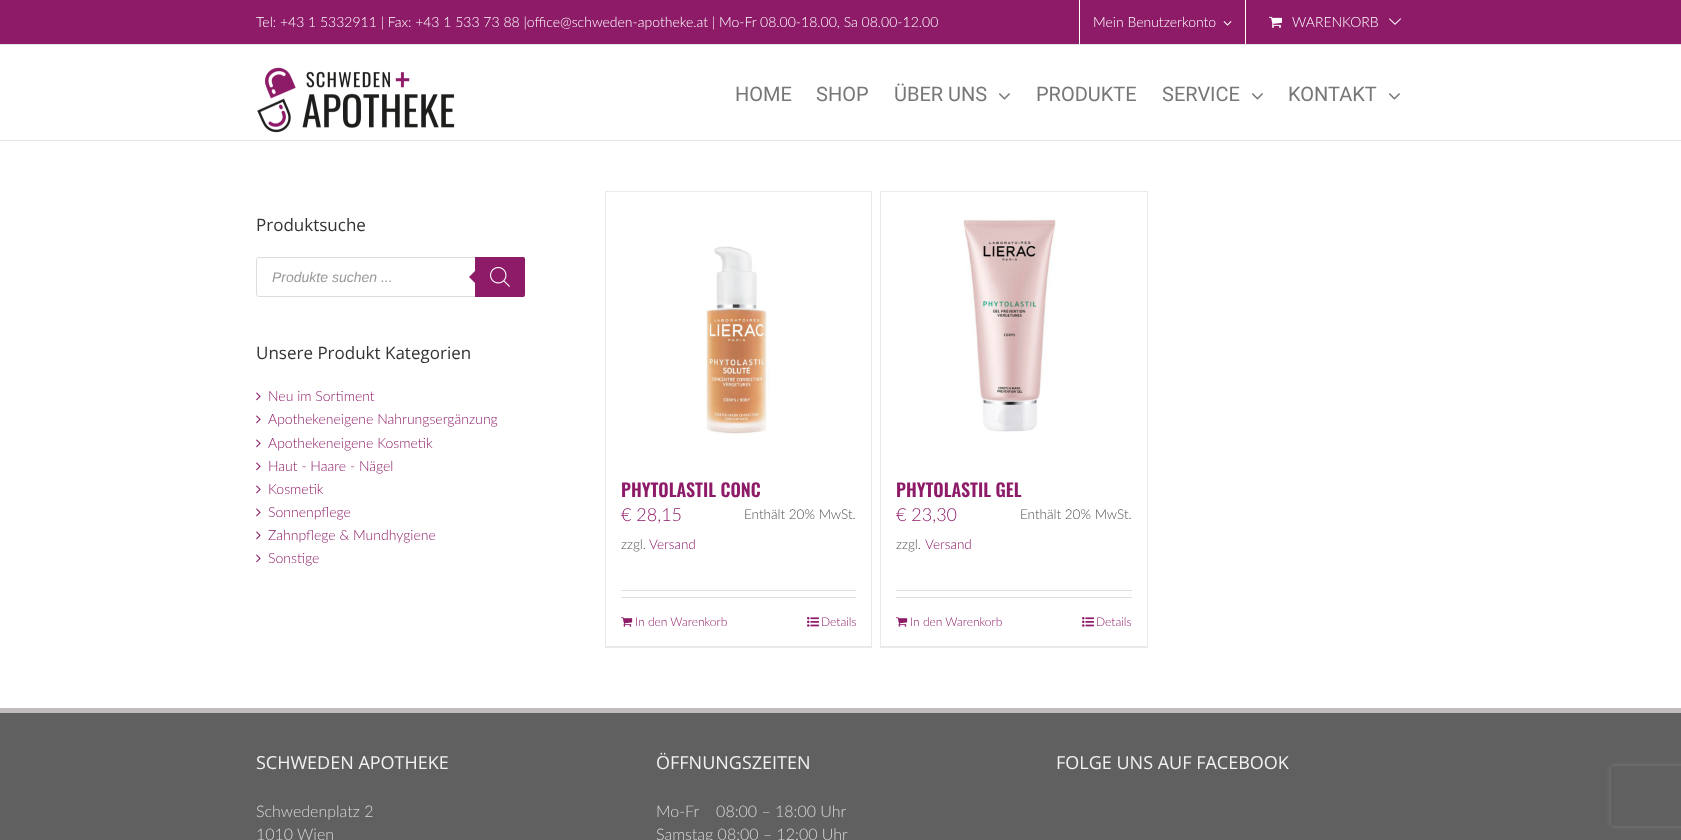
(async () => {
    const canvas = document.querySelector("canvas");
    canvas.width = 1681;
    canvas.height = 840;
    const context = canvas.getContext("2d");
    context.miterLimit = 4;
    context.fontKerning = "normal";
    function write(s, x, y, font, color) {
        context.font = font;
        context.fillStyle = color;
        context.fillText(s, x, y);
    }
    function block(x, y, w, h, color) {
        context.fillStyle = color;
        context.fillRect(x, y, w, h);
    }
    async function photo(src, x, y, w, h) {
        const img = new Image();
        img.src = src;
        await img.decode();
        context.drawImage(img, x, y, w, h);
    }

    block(0, 0, 1681, 840, "rgb(255, 255, 255)");
    block(0, 0, 1681, 44, "rgb(142, 27, 104)");
    block(0, 44, 1681, 1, "rgb(229, 229, 229)");
    write("Tel: +43 1 5332911 | Fax: +43 1 533 73 88 |office@schweden-apotheke.at | Mo-Fr 08.00-18.00, Sa 08.00-12.00", 256, 27, "300 14px Lato", "rgb(255, 255, 255)");
    block(1079, 0, 1, 44, "rgb(255, 255, 255)");
    write("Mein Benutzerkonto", 1093, 27, "300 14px Lato", "rgb(255, 255, 255)");
    await photo("media/1.png", 1223, 21, 9, 5);
    block(1245, 0, 1, 44, "rgb(255, 255, 255)");
    await photo("media/2.png", 1269, 16, 13, 12);
    write("WARENKORB", 1292, 27, "300 14px Lato", "rgb(255, 255, 255)");
    await photo("media/3.png", 1389, 18, 12, 7);
    block(0, 140, 1681, 1, "rgb(229, 229, 229)");
    await photo("media/4.png", 257, 67, 198, 66);
    write("HOME", 735, 101, "20px Roboto", "rgb(119, 119, 119)");
    write("SHOP", 816, 101, "20px Roboto", "rgb(119, 119, 119)");
    write("ÜBER UNS", 894, 101, "20px Roboto", "rgb(119, 119, 119)");
    await photo("media/5.png", 998, 93, 12, 7);
    write("PRODUKTE", 1036, 101, "20px Roboto", "rgb(119, 119, 119)");
    write("SERVICE", 1162, 101, "20px Roboto", "rgb(119, 119, 119)");
    await photo("media/5.png", 1251, 93, 12, 7);
    write("KONTAKT", 1288, 101, "20px Roboto", "rgb(119, 119, 119)");
    await photo("media/5.png", 1388, 93, 12, 7);
    write("Produktsuche", 256, 231, "17px Open Sans", "rgb(51, 51, 51)");
    context.beginPath();
    context.roundRect(256.5, 257.5, 268, 39, 2.5);
    context.strokeStyle = "rgb(221, 221, 221)";
    context.stroke();
    write("Produkte suchen ...", 272, 282, "italic 14px Liberation Sans", "rgb(153, 153, 153)");
    context.fillStyle = "rgb(142, 27, 104)";
    context.beginPath();
    context.roundRect(475, 257, 50, 40, [0, 2, 2, 0]);
    context.fill();
    context.beginPath();
    context.moveTo(477, 269);
    context.lineTo(477, 285);
    context.lineTo(469, 277);
    context.closePath();
    context.fill();
    await photo("media/6.png", 490, 267, 20, 20);
    write("Unsere Produkt Kategorien", 256, 359, "17px Open Sans", "rgb(51, 51, 51)");
    await photo("media/7.png", 256, 392, 5, 9);
    write("Neu im Sortiment", 268, 401, "300 14px Lato", "rgb(142, 27, 104)");
    await photo("media/7.png", 256, 415, 5, 9);
    write("Apothekeneigene Nahrungsergänzung", 268, 424, "300 14px Lato", "rgb(142, 27, 104)");
    await photo("media/7.png", 256, 439, 5, 9);
    write("Apothekeneigene Kosmetik", 268, 448, "300 14px Lato", "rgb(142, 27, 104)");
    await photo("media/7.png", 256, 462, 5, 9);
    write("Haut - Haare - Nägel", 268, 471, "300 14px Lato", "rgb(142, 27, 104)");
    await photo("media/7.png", 256, 485, 5, 9);
    write("Kosmetik", 268, 494, "300 14px Lato", "rgb(142, 27, 104)");
    await photo("media/7.png", 256, 508, 5, 9);
    write("Sonnenpflege", 268, 517, "300 14px Lato", "rgb(142, 27, 104)");
    await photo("media/7.png", 256, 531, 5, 9);
    write("Zahnpflege & Mundhygiene", 268, 540, "300 14px Lato", "rgb(142, 27, 104)");
    await photo("media/7.png", 256, 554, 5, 9);
    write("Sonstige", 268, 563, "300 14px Lato", "rgb(142, 27, 104)");
    block(605, 191, 267, 1, "rgb(235, 234, 234)");
    block(871, 191, 1, 457, "rgb(235, 234, 234)");
    block(605, 646, 267, 2, "rgb(235, 234, 234)");
    block(605, 191, 1, 457, "rgb(235, 234, 234)");
    await photo("media/8.png", 706, 246, 64, 188);
    write("PHYTOLASTIL CONC", 621, 497, "600 18px Oswald", "rgb(142, 27, 104)");
    write("€ 28,15", 621, 521, "300 18px Lato", "rgb(142, 27, 104)");
    write("Enthält 20% MwSt.", 744, 519, "300 13.5px Lato", "rgb(81, 81, 81)");
    write("zzgl.", 621, 549, "300 13.5px Lato", "rgb(81, 81, 81)");
    write("Versand", 649, 549, "300 13.5px Lato", "rgb(142, 27, 104)");
    block(621, 590, 235, 1, "rgb(224, 222, 222)");
    block(621, 597, 235, 1, "rgb(224, 222, 222)");
    await photo("media/9.png", 621, 617, 12, 10);
    write("In den Warenkorb", 635, 626, "300 12px Lato", "rgb(142, 27, 104)");
    await photo("media/10.png", 807, 617, 12, 10);
    write("Details", 821, 626, "300 12px Lato", "rgb(142, 27, 104)");
    block(880, 191, 268, 1, "rgb(235, 234, 234)");
    block(1147, 191, 1, 457, "rgb(235, 234, 234)");
    block(880, 646, 268, 2, "rgb(235, 234, 234)");
    block(880, 191, 1, 457, "rgb(235, 234, 234)");
    await photo("media/11.png", 963, 219, 93, 213);
    write("PHYTOLASTIL GEL", 896, 497, "600 18px Oswald", "rgb(142, 27, 104)");
    write("€ 23,30", 896, 521, "300 18px Lato", "rgb(142, 27, 104)");
    write("Enthält 20% MwSt.", 1020, 519, "300 13.5px Lato", "rgb(81, 81, 81)");
    write("zzgl.", 896, 549, "300 13.5px Lato", "rgb(81, 81, 81)");
    write("Versand", 925, 549, "300 13.5px Lato", "rgb(142, 27, 104)");
    block(896, 590, 236, 1, "rgb(224, 222, 222)");
    block(896, 597, 236, 1, "rgb(224, 222, 222)");
    await photo("media/9.png", 896, 617, 12, 10);
    write("In den Warenkorb", 910, 626, "300 12px Lato", "rgb(142, 27, 104)");
    await photo("media/10.png", 1082, 617, 12, 10);
    write("Details", 1096, 626, "300 12px Lato", "rgb(142, 27, 104)");
    block(0, 713, 1681, 127, "rgb(96, 96, 96)");
    block(0, 708, 1681, 5, "rgb(191, 188, 187)");
    write("SCHWEDEN APOTHEKE", 256, 769, "18px Open Sans", "rgb(242, 242, 242)");
    write("Schwedenplatz 2", 256, 817, "300 16px Lato", "rgb(216, 216, 216)");
    write("1010 Wien", 256, 840, "300 16px Lato", "rgb(216, 216, 216)");
    write("ÖFFNUNGSZEITEN", 656, 769, "18px Open Sans", "rgb(242, 242, 242)");
    write("Mo-Fr    08:00 – 18:00 Uhr", 656, 817, "300 16px Lato", "rgb(216, 216, 216)");
    write("Samstag 08:00 – 12:00 Uhr", 656, 840, "300 16px Lato", "rgb(216, 216, 216)");
    write("FOLGE UNS AUF FACEBOOK", 1056, 769, "18px Open Sans", "rgb(242, 242, 242)");
    context.save();
    context.beginPath();
    context.moveTo(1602, 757);
    context.lineTo(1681, 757);
    context.lineTo(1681, 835);
    context.lineTo(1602, 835);
    context.closePath();
    context.moveTo(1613, 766);
    context.lineTo(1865, 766);
    context.bezierCurveTo(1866, 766, 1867, 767, 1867, 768);
    context.lineTo(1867, 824);
    context.bezierCurveTo(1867, 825, 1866, 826, 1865, 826);
    context.lineTo(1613, 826);
    context.bezierCurveTo(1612, 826, 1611, 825, 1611, 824);
    context.lineTo(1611, 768);
    context.bezierCurveTo(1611, 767, 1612, 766, 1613, 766);
    context.closePath();
    context.clip("evenodd");
    context.fillStyle = "rgb(128, 128, 128)";
    context.filter = "blur(2.5px)";
    context.beginPath();
    context.roundRect(1611, 766, 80, 60, 2);
    context.fill();
    context.filter = "none";
    context.restore();
})();
